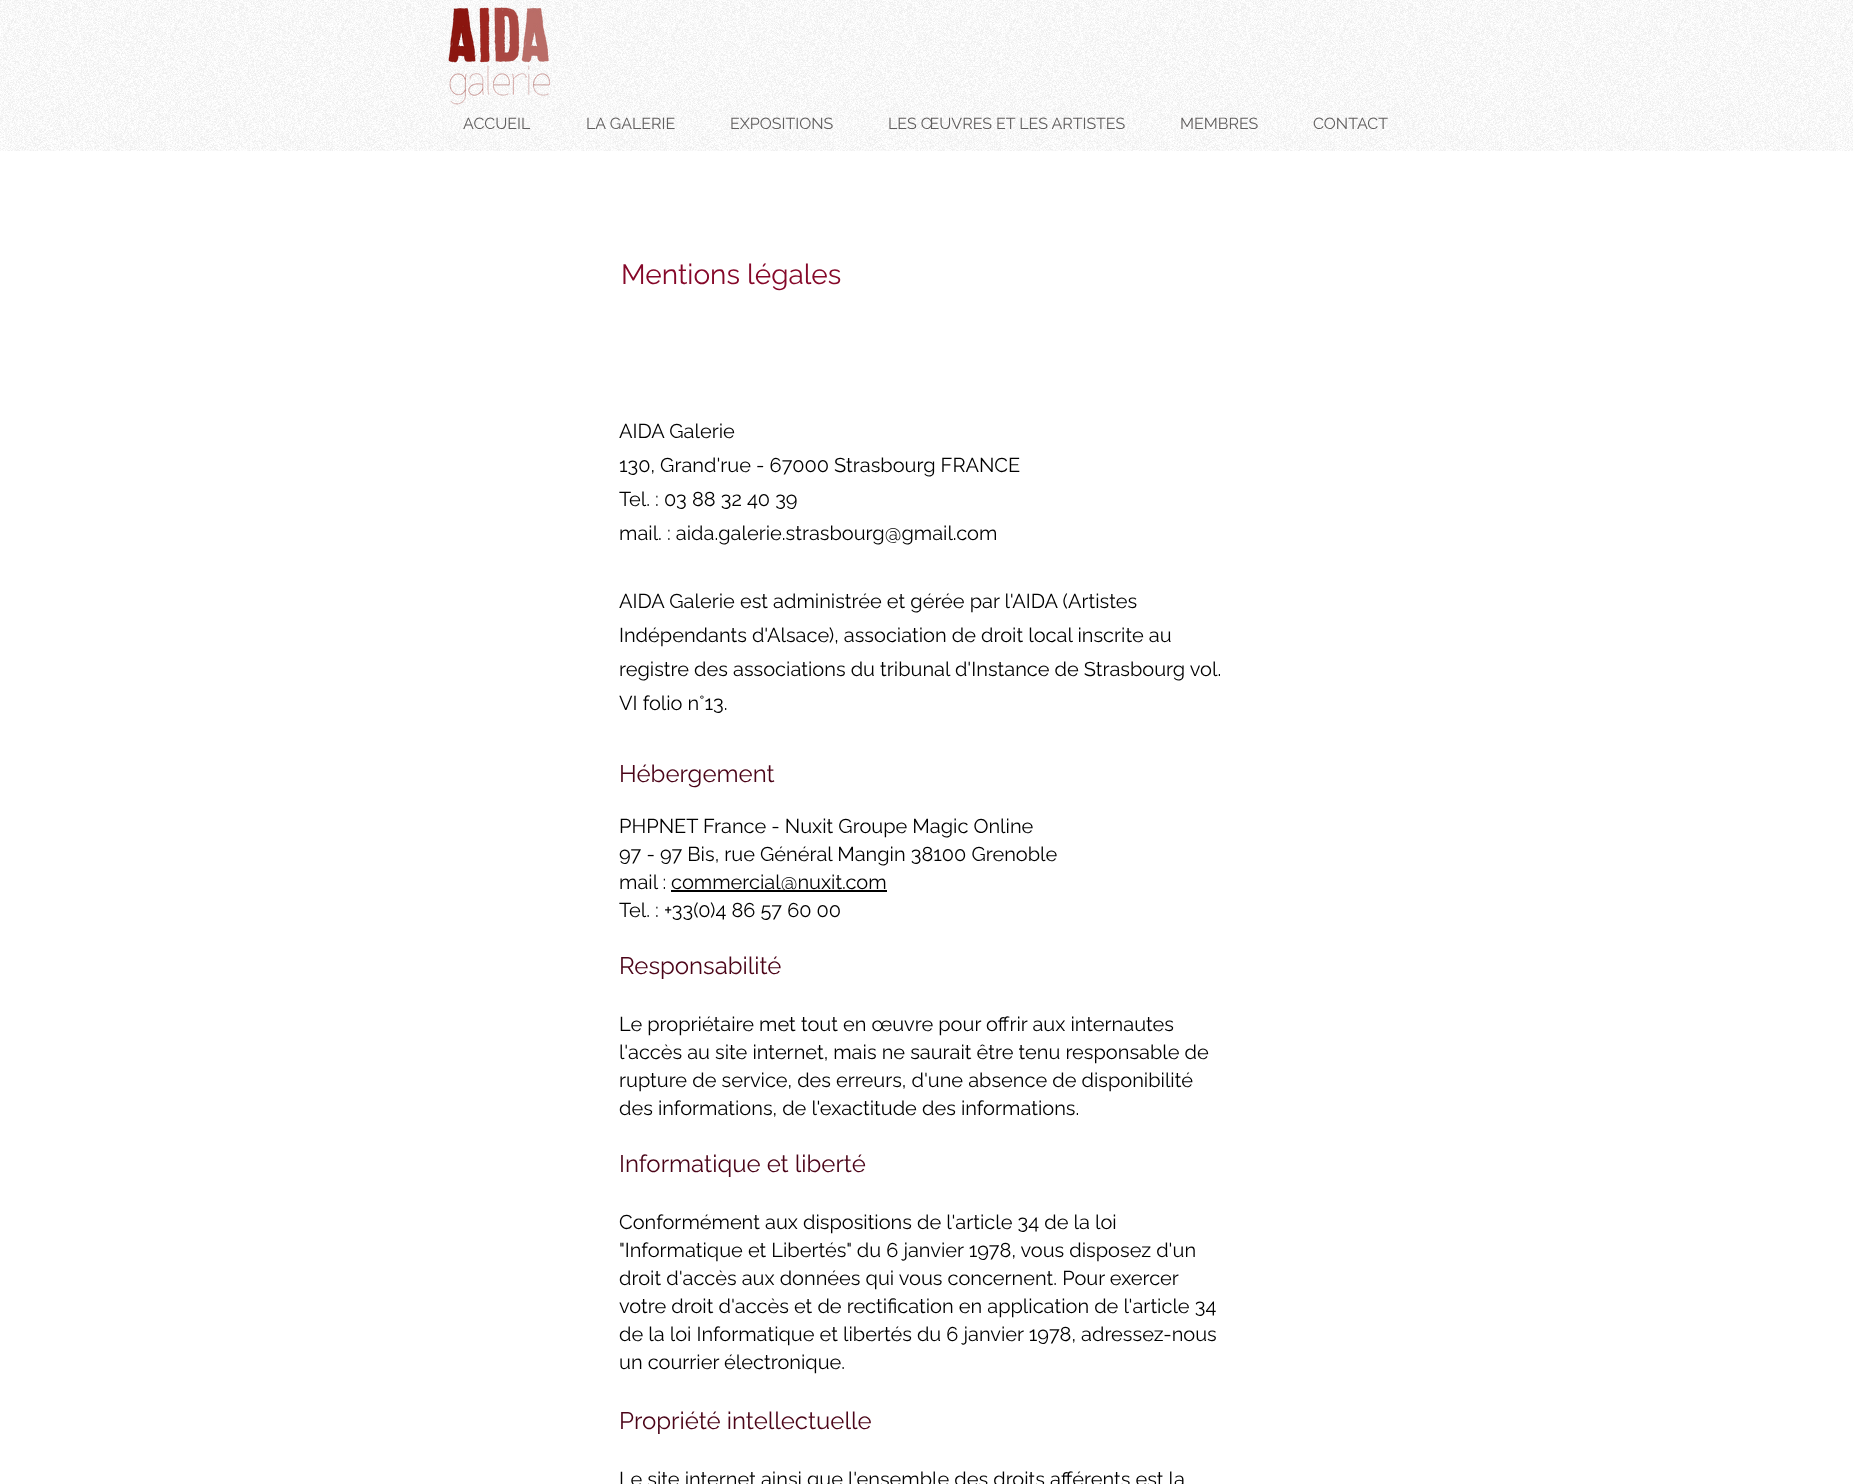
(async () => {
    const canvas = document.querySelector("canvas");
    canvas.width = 1853;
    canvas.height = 1484;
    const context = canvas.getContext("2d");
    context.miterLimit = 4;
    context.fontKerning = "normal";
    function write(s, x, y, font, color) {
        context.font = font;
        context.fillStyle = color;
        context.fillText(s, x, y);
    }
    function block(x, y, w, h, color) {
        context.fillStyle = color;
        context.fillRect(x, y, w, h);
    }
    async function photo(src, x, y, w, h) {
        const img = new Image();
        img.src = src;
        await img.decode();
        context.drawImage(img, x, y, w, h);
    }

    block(0, 0, 1853, 1484, "rgb(255, 255, 255)");
    await photo("media/1.png", 0, 0, 1853, 151);
    await photo("media/2.png", 448, 7, 103, 98);
    write("ACCUEIL", 463, 129, "16px Raleway", "rgb(96, 94, 94)");
    write("LA GALERIE", 586, 129, "16px Raleway", "rgb(96, 94, 94)");
    write("EXPOSITIONS", 730, 129, "16px Raleway", "rgb(96, 94, 94)");
    write("LES ŒUVRES ET LES ARTISTES", 888, 129, "16px Raleway", "rgb(96, 94, 94)");
    write("MEMBRES", 1180, 129, "16px Raleway", "rgb(96, 94, 94)");
    write("CONTACT", 1313, 129, "16px Raleway", "rgb(96, 94, 94)");
    write("Mentions légales", 621, 284, "28px Raleway", "rgb(133, 8, 41)");
    write("AIDA Galerie", 619, 438, "20px Raleway", "rgb(0, 0, 0)");
    write("130, Grand'rue - 67000 Strasbourg FRANCE", 619, 472, "20px Raleway", "rgb(0, 0, 0)");
    write("Tel. : 03 88 32 40 39", 619, 506, "20px Raleway", "rgb(0, 0, 0)");
    write("mail. : aida.galerie.strasbourg@gmail.com", 619, 540, "20px Raleway", "rgb(0, 0, 0)");
    write("AIDA Galerie est administrée et gérée par l'AIDA (Artistes", 619, 608, "20px Raleway", "rgb(0, 0, 0)");
    write("Indépendants d'Alsace), association de droit local inscrite au", 619, 642, "20px Raleway", "rgb(0, 0, 0)");
    write("registre des associations du tribunal d'Instance de Strasbourg vol.", 619, 676, "20px Raleway", "rgb(0, 0, 0)");
    write("VI folio n°13.", 619, 710, "20px Raleway", "rgb(0, 0, 0)");
    write("Hébergement", 619, 782, "24px Raleway", "rgb(75, 4, 24)");
    write("PHPNET France - Nuxit Groupe Magic Online", 619, 833, "20px Raleway", "rgb(0, 0, 0)");
    write("97 - 97 Bis, rue Général Mangin 38100 Grenoble", 619, 861, "20px Raleway", "rgb(0, 0, 0)");
    write("mail :", 619, 889, "20px Raleway", "rgb(0, 0, 0)");
    block(671, 890, 216, 2, "rgb(0, 0, 0)");
    write("commercial@nuxit.com", 671, 889, "20px Raleway", "rgb(0, 0, 0)");
    write("Tel. : +33(0)4 86 57 60 00", 619, 917, "20px Raleway", "rgb(0, 0, 0)");
    write("Responsabilité", 619, 974, "24px Raleway", "rgb(75, 4, 24)");
    write("Le propriétaire met tout en œuvre pour offrir aux internautes", 619, 1031, "20px Raleway", "rgb(0, 0, 0)");
    write("l'accès au site internet, mais ne saurait être tenu responsable de", 619, 1059, "20px Raleway", "rgb(0, 0, 0)");
    write("rupture de service, des erreurs, d'une absence de disponibilité", 619, 1087, "20px Raleway", "rgb(0, 0, 0)");
    write("des informations, de l'exactitude des informations.", 619, 1115, "20px Raleway", "rgb(0, 0, 0)");
    write("Informatique et liberté", 619, 1172, "24px Raleway", "rgb(75, 4, 24)");
    write("Conformément aux dispositions de l'article 34 de la loi", 619, 1229, "20px Raleway", "rgb(0, 0, 0)");
    write("\"Informatique et Libertés\" du 6 janvier 1978, vous disposez d'un", 619, 1257, "20px Raleway", "rgb(0, 0, 0)");
    write("droit d'accès aux données qui vous concernent. Pour exercer", 619, 1285, "20px Raleway", "rgb(0, 0, 0)");
    write("votre droit d'accès et de rectification en application de l'article 34", 619, 1313, "20px Raleway", "rgb(0, 0, 0)");
    write("de la loi Informatique et libertés du 6 janvier 1978, adressez-nous", 619, 1341, "20px Raleway", "rgb(0, 0, 0)");
    write("un courrier électronique.", 619, 1369, "20px Raleway", "rgb(0, 0, 0)");
    write("Propriété intellectuelle", 619, 1429, "24px Raleway", "rgb(75, 4, 24)");
    write("Le site internet ainsi que l'ensemble des droits afférents est la", 619, 1486, "20px Raleway", "rgb(0, 0, 0)");
})();
